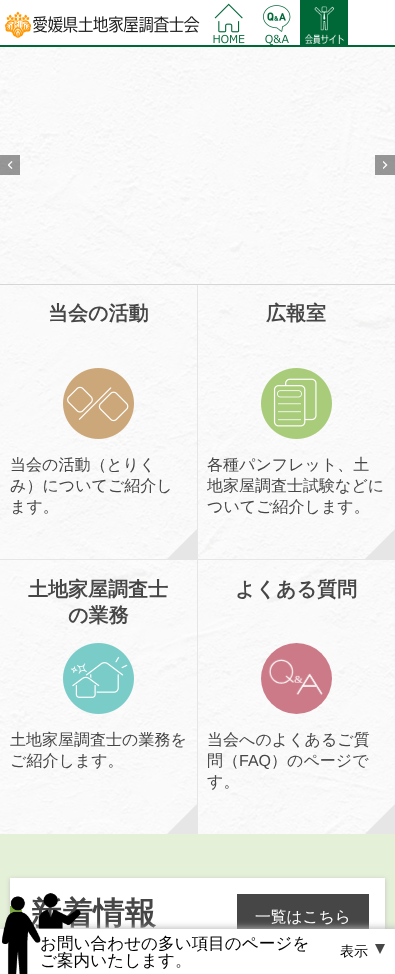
(async () => {
    const canvas = document.querySelector("canvas");
    canvas.width = 395;
    canvas.height = 974;
    const context = canvas.getContext("2d");
    context.miterLimit = 4;
    context.fontKerning = "normal";
    function write(s, x, y, font, color) {
        context.font = font;
        context.fillStyle = color;
        context.fillText(s, x, y);
    }
    function block(x, y, w, h, color) {
        context.fillStyle = color;
        context.fillRect(x, y, w, h);
    }
    async function photo(src, x, y, w, h) {
        const img = new Image();
        img.src = src;
        await img.decode();
        context.drawImage(img, x, y, w, h);
    }

    block(0, 0, 395, 974, "rgb(255, 255, 255)");
    await photo("media/1.png", 0, 47, 395, 787);
    block(0, 45, 395, 2, "rgb(0, 104, 55)");
    await photo("media/2.png", 5, 11, 195, 27);
    await photo("media/3.png", 213, 3, 32, 41);
    await photo("media/4.png", 263, 5, 28, 40);
    await photo("media/5.png", 300, 0, 48, 45);
    block(0, 284, 395, 1, "rgb(216, 213, 214)");
    block(0, 155, 20, 20, "rgba(0, 0, 0, 0.4)");
    await photo("media/6.png", 8, 161, 5, 8);
    block(375, 155, 20, 20, "rgba(0, 0, 0, 0.4)");
    await photo("media/7.png", 383, 161, 5, 8);
    block(197, 285, 1, 549, "rgb(230, 230, 230)");
    block(0, 559, 395, 1, "rgb(230, 230, 230)");
    write("当会の活動", 48, 320, "bold 20px WenQuanYi Zen Hei", "rgb(70, 70, 70)");
    await photo("media/8.png", 63, 368, 71, 71);
    write("当会の活動（とりく", 10, 470, "500 16px WenQuanYi Zen Hei", "rgb(70, 70, 70)");
    write("み）についてご紹介し", 10, 491, "500 16px WenQuanYi Zen Hei", "rgb(70, 70, 70)");
    write("ます。", 10, 512, "500 16px WenQuanYi Zen Hei", "rgb(70, 70, 70)");
    context.fillStyle = "rgb(230, 230, 230)";
    context.beginPath();
    context.moveTo(197, 529);
    context.lineTo(197, 559);
    context.lineTo(167, 559);
    context.closePath();
    context.fill();
    write("広報室", 266, 320, "bold 20px WenQuanYi Zen Hei", "rgb(70, 70, 70)");
    await photo("media/9.png", 261, 368, 71, 71);
    write("各種パンフレット、土", 207, 470, "500 16px WenQuanYi Zen Hei", "rgb(70, 70, 70)");
    write("地家屋調査士試験などに", 207, 491, "500 16px WenQuanYi Zen Hei", "rgb(70, 70, 70)");
    write("ついてご紹介します。", 207, 512, "500 16px WenQuanYi Zen Hei", "rgb(70, 70, 70)");
    context.fillStyle = "rgb(230, 230, 230)";
    context.beginPath();
    context.moveTo(395, 529);
    context.lineTo(395, 559);
    context.lineTo(365, 559);
    context.closePath();
    context.fill();
    write("土地家屋調査士", 28, 596, "bold 20px WenQuanYi Zen Hei", "rgb(70, 70, 70)");
    write("の業務", 68, 622, "bold 20px WenQuanYi Zen Hei", "rgb(70, 70, 70)");
    await photo("media/10.png", 63, 643, 71, 71);
    write("土地家屋調査士の業務を", 10, 745, "500 16px WenQuanYi Zen Hei", "rgb(70, 70, 70)");
    write("ご紹介します。", 10, 766, "500 16px WenQuanYi Zen Hei", "rgb(70, 70, 70)");
    context.fillStyle = "rgb(230, 230, 230)";
    context.beginPath();
    context.moveTo(197, 804);
    context.lineTo(197, 834);
    context.lineTo(167, 834);
    context.closePath();
    context.fill();
    write("よくある質問", 235, 596, "bold 20px WenQuanYi Zen Hei", "rgb(70, 70, 70)");
    await photo("media/11.png", 261, 643, 71, 71);
    write("当会へのよくあるご質", 207, 745, "500 16px WenQuanYi Zen Hei", "rgb(70, 70, 70)");
    write("問（", 207, 766, "500 16px WenQuanYi Zen Hei", "rgb(70, 70, 70)");
    write("FAQ", 239, 766, "16px Liberation Sans", "rgb(70, 70, 70)");
    write("）のページで", 271, 766, "500 16px WenQuanYi Zen Hei", "rgb(70, 70, 70)");
    write("す。", 207, 787, "500 16px WenQuanYi Zen Hei", "rgb(70, 70, 70)");
    context.fillStyle = "rgb(230, 230, 230)";
    context.beginPath();
    context.moveTo(395, 804);
    context.lineTo(395, 834);
    context.lineTo(365, 834);
    context.closePath();
    context.fill();
    block(0, 834, 395, 95, "rgb(228, 240, 215)");
    context.fillStyle = "rgb(195, 194, 194)";
    context.filter = "blur(2px)";
    context.beginPath();
    context.rect(10, 879, 375, 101);
    context.fill();
    context.filter = "none";
    block(10, 878, 375, 51, "rgb(255, 255, 255)");
    context.fillStyle = "rgb(124, 168, 66)";
    context.beginPath();
    context.roundRect(10, 906, 12, 10, [0, 5, 5, 0]);
    context.fill();
    write("新着情報", 30, 924, "bold 31.5px WenQuanYi Zen Hei", "rgb(70, 70, 70)");
    block(237, 894, 132, 35, "rgb(70, 70, 70)");
    write("一覧はこちら", 255, 922, "500 15.75px WenQuanYi Zen Hei", "rgb(255, 255, 255)");
    context.fillStyle = "rgb(186, 186, 186)";
    context.filter = "blur(3.5px)";
    context.beginPath();
    context.rect(3, 928, 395, 45);
    context.fill();
    context.filter = "none";
    block(0, 929, 395, 45, "rgb(255, 255, 255)");
    await photo("media/12.png", 2, 896, 39, 78);
    await photo("media/13.png", 38, 893, 43, 36);
    write("お問い合わせの多い項目のページを", 40, 949, "500 16.6px WenQuanYi Zen Hei", "rgb(0, 0, 0)");
    write("ご案内いたします。", 40, 966, "500 16.6px WenQuanYi Zen Hei", "rgb(0, 0, 0)");
    write("表示", 340, 956, "500 14px WenQuanYi Zen Hei", "rgb(0, 0, 0)");
    context.fillStyle = "rgb(70, 70, 70)";
    context.beginPath();
    context.moveTo(375, 944);
    context.lineTo(385, 944);
    context.lineTo(380, 954);
    context.closePath();
    context.fill();
})();
